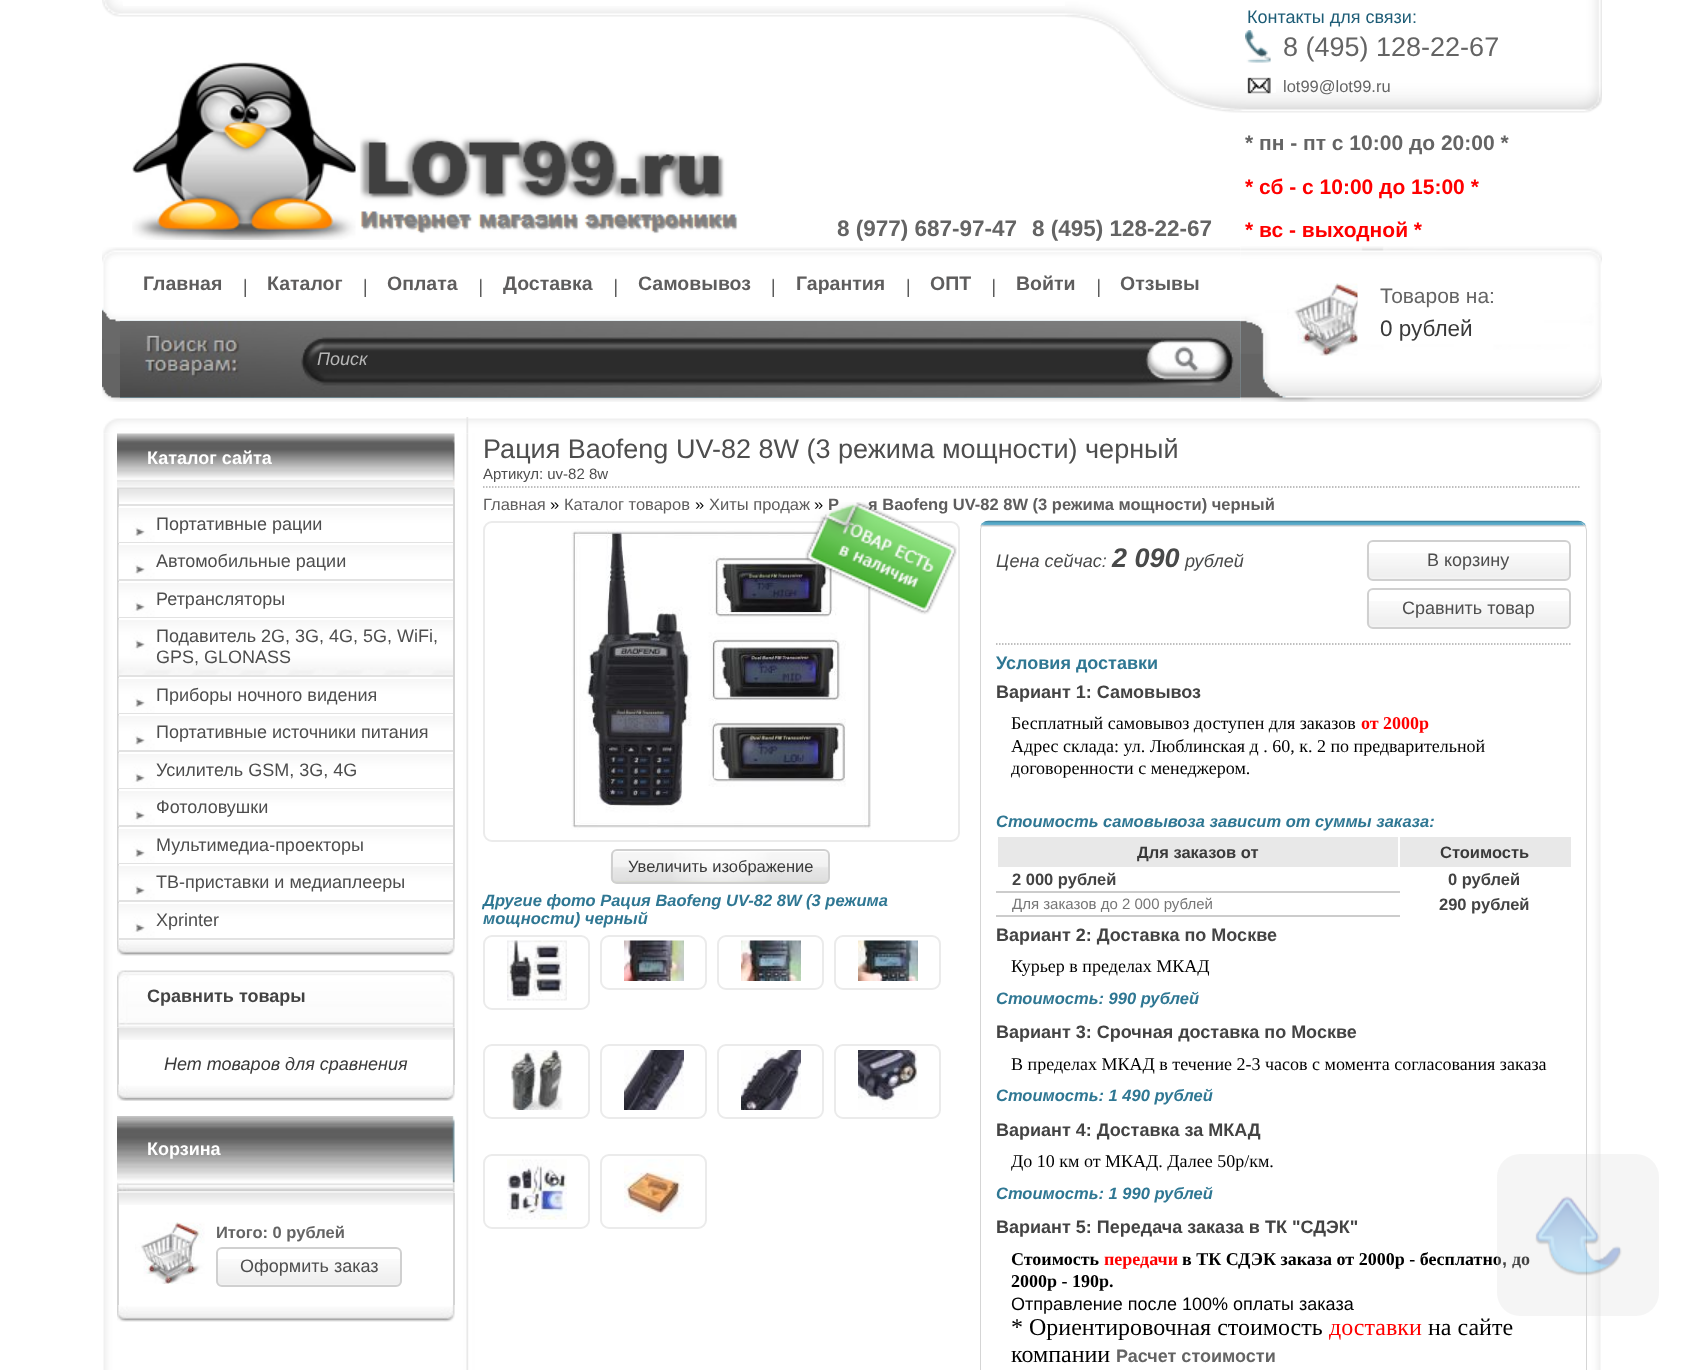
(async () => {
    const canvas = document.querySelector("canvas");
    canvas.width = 1703;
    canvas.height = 1370;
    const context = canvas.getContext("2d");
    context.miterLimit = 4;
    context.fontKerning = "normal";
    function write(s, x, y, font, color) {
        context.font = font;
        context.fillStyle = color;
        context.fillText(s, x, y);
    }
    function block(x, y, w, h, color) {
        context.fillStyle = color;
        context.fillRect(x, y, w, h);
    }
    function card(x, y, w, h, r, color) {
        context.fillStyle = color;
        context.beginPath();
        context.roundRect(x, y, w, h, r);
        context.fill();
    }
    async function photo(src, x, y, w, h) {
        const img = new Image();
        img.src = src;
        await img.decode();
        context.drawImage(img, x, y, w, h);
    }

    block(0, 0, 1703, 1370, "rgb(255, 255, 255)");
    await photo("media/1.png", 102, 0, 21, 17);
    await photo("media/2.png", 123, 6, 942, 11);
    await photo("media/3.png", 1065, 0, 537, 113);
    write("Контакты для связи:", 1247, 23, "18px Liberation Sans", "rgb(30, 93, 119)");
    await photo("media/4.png", 1245, 30, 26, 33);
    write("8 (495) 128-22-67", 1283, 56, "27px Liberation Sans", "rgb(100, 100, 100)");
    await photo("media/5.png", 1245, 77, 31, 17);
    write("lot99@lot99.ru", 1283, 92, "16.5px Liberation Sans", "rgb(100, 100, 100)");
    write("* пн - пт с 10:00 до 20:00 *", 1245, 150, "bold 21px Liberation Sans", "rgb(100, 100, 100)");
    write("* сб - с 10:00 до 15:00 *", 1245, 194, "bold 21px Liberation Sans", "rgb(255, 0, 0)");
    write("* вс - выходной *", 1245, 237, "bold 21px Liberation Sans", "rgb(255, 0, 0)");
    await photo("media/6.png", 132, 62, 606, 178);
    write("8 (977) 687-97-47", 837, 236, "bold 22.5px Liberation Sans", "rgb(100, 100, 100)");
    write("8 (495) 128-22-67", 1032, 236, "bold 22.5px Liberation Sans", "rgb(100, 100, 100)");
    await photo("media/7.png", 102, 247, 18, 155);
    await photo("media/8.png", 120, 247, 1121, 155);
    write("Главная", 143, 290, "bold 19.5px Liberation Sans", "rgb(94, 93, 93)");
    await photo("media/9.png", 244, 278, 2, 19);
    write("Каталог", 267, 290, "bold 19.5px Liberation Sans", "rgb(94, 93, 93)");
    await photo("media/9.png", 364, 278, 2, 19);
    write("Оплата", 387, 290, "bold 19.5px Liberation Sans", "rgb(94, 93, 93)");
    await photo("media/10.png", 480, 278, 2, 19);
    write("Доставка", 503, 290, "bold 19.5px Liberation Sans", "rgb(94, 93, 93)");
    await photo("media/10.png", 615, 278, 2, 19);
    write("Самовывоз", 638, 290, "bold 19.5px Liberation Sans", "rgb(94, 93, 93)");
    await photo("media/9.png", 772, 278, 2, 19);
    write("Гарантия", 796, 290, "bold 19.5px Liberation Sans", "rgb(94, 93, 93)");
    await photo("media/9.png", 907, 278, 2, 19);
    write("ОПТ", 930, 290, "bold 19.5px Liberation Sans", "rgb(94, 93, 93)");
    await photo("media/10.png", 993, 278, 2, 19);
    write("Войти", 1016, 290, "bold 19.5px Liberation Sans", "rgb(94, 93, 93)");
    await photo("media/10.png", 1098, 278, 2, 19);
    write("Отзывы", 1120, 290, "bold 19.5px Liberation Sans", "rgb(94, 93, 93)");
    await photo("media/11.png", 120, 321, 1121, 77);
    await photo("media/12.png", 147, 336, 12, 1);
    write("Поиск", 317, 365, "italic 18px Liberation Sans", "rgb(183, 183, 183)");
    await photo("media/13.png", 1147, 347, 85, 34);
    await photo("media/14.png", 1240, 246, 362, 156);
    await photo("media/15.png", 1287, 283, 71, 73);
    write("Товаров на:", 1380, 303, "21px Liberation Sans", "rgb(100, 100, 100)");
    write("0 рублей", 1380, 336, "22.5px Liberation Sans", "rgb(58, 58, 58)");
    await photo("media/16.png", 103, 417, 1498, 17);
    await photo("media/17.png", 103, 433, 1498, 937);
    await photo("media/18.png", 117, 433, 338, 56);
    write("Каталог сайта", 147, 464, "bold 18px Liberation Sans", "rgb(255, 255, 255)");
    await photo("media/19.png", 119, 489, 334, 13);
    block(453, 489, 2, 450, "rgb(213, 213, 213)");
    block(117, 489, 2, 450, "rgb(213, 213, 213)");
    block(119, 504, 334, 2, "rgb(226, 226, 226)");
    await photo("media/20.png", 118, 507, 335, 36);
    block(119, 507, 334, 1, "rgb(255, 255, 255)");
    block(119, 542, 334, 1, "rgb(226, 226, 226)");
    write("Портативные рации", 156, 530, "18px Liberation Sans", "rgb(78, 78, 78)");
    await photo("media/21.png", 118, 544, 335, 37);
    block(119, 544, 334, 1, "rgb(255, 255, 255)");
    block(119, 579, 334, 2, "rgb(226, 226, 226)");
    write("Автомобильные рации", 156, 567, "18px Liberation Sans", "rgb(78, 78, 78)");
    await photo("media/20.png", 118, 582, 335, 36);
    block(119, 582, 334, 1, "rgb(255, 255, 255)");
    block(119, 617, 334, 1, "rgb(226, 226, 226)");
    write("Ретрансляторы", 156, 605, "18px Liberation Sans", "rgb(78, 78, 78)");
    await photo("media/22.png", 118, 619, 335, 58);
    block(119, 619, 334, 1, "rgb(255, 255, 255)");
    block(119, 675, 334, 2, "rgb(226, 226, 226)");
    write("Подавитель 2G, 3G, 4G, 5G, WiFi,", 156, 642, "18px Liberation Sans", "rgb(78, 78, 78)");
    write("GPS, GLONASS", 156, 663, "18px Liberation Sans", "rgb(78, 78, 78)");
    await photo("media/20.png", 118, 678, 335, 36);
    block(119, 678, 334, 1, "rgb(255, 255, 255)");
    block(119, 713, 334, 1, "rgb(226, 226, 226)");
    write("Приборы ночного видения", 156, 701, "18px Liberation Sans", "rgb(78, 78, 78)");
    await photo("media/21.png", 118, 715, 335, 37);
    block(119, 715, 334, 1, "rgb(255, 255, 255)");
    block(119, 750, 334, 2, "rgb(226, 226, 226)");
    write("Портативные источники питания", 156, 738, "18px Liberation Sans", "rgb(78, 78, 78)");
    await photo("media/20.png", 118, 753, 335, 36);
    block(119, 753, 334, 1, "rgb(255, 255, 255)");
    block(119, 788, 334, 1, "rgb(226, 226, 226)");
    write("Усилитель GSM, 3G, 4G", 156, 776, "18px Liberation Sans", "rgb(78, 78, 78)");
    await photo("media/21.png", 118, 790, 335, 37);
    block(119, 790, 334, 1, "rgb(255, 255, 255)");
    block(119, 825, 334, 2, "rgb(226, 226, 226)");
    write("Фотоловушки", 156, 813, "18px Liberation Sans", "rgb(78, 78, 78)");
    await photo("media/20.png", 118, 828, 335, 36);
    block(119, 828, 334, 1, "rgb(255, 255, 255)");
    block(119, 863, 334, 1, "rgb(226, 226, 226)");
    write("Мультимедиа-проекторы", 156, 851, "18px Liberation Sans", "rgb(78, 78, 78)");
    await photo("media/21.png", 118, 865, 335, 37);
    block(119, 865, 334, 1, "rgb(255, 255, 255)");
    block(119, 900, 334, 2, "rgb(226, 226, 226)");
    write("ТВ-приставки и медиаплееры", 156, 888, "18px Liberation Sans", "rgb(78, 78, 78)");
    await photo("media/20.png", 118, 903, 335, 36);
    block(119, 903, 334, 1, "rgb(255, 255, 255)");
    await photo("media/23.png", 117, 939, 338, 17);
    block(119, 938, 334, 2, "rgb(226, 226, 226)");
    write("Xprinter", 156, 926, "18px Liberation Sans", "rgb(78, 78, 78)");
    await photo("media/24.png", 117, 970, 338, 58);
    write("Сравнить товары", 147, 1002, "bold 18px Liberation Sans", "rgb(67, 67, 67)");
    await photo("media/25.png", 117, 1027, 338, 13);
    block(453, 1028, 2, 57, "rgb(213, 213, 213)");
    block(117, 1028, 2, 57, "rgb(213, 213, 213)");
    write("Нет товаров для сравнения", 164, 1070, "italic 18px Liberation Sans", "rgb(58, 58, 58)");
    await photo("media/26.png", 117, 1084, 338, 17);
    await photo("media/27.png", 117, 1116, 338, 77);
    write("Корзина", 147, 1155, "bold 18px Liberation Sans", "rgb(255, 255, 255)");
    await photo("media/28.png", 117, 1192, 338, 13);
    block(453, 1193, 2, 112, "rgb(213, 213, 213)");
    block(117, 1193, 2, 112, "rgb(213, 213, 213)");
    await photo("media/29.png", 135, 1222, 70, 62);
    write("Итого: 0 рублей", 216, 1238, "bold 16.5px Liberation Sans", "rgb(100, 100, 100)");
    await photo("media/30.png", 216, 1259, 186, 27);
    context.beginPath();
    context.roundRect(217, 1248, 184, 38, 5);
    context.strokeStyle = "rgb(208, 208, 208)";
    context.lineWidth = 2;
    context.stroke();
    write("Оформить заказ", 240, 1272, "18px Liberation Sans", "rgb(78, 78, 78)");
    await photo("media/23.png", 117, 1305, 338, 17);
    context.beginPath();
    context.moveTo(483, 487);
    context.lineTo(1581, 487);
    context.strokeStyle = "rgb(171, 171, 171)";
    context.lineWidth = 1.5;
    context.setLineDash([1.5, 1.5]);
    context.stroke();
    write("Рация Baofeng UV-82 8W (3 режима мощности) черный", 483, 458, "27px Liberation Sans", "rgb(78, 78, 78)");
    write("Артикул: uv-82 8w", 483, 479, "15px Liberation Sans", "rgb(78, 78, 78)");
    write("Главная", 483, 510, "16.5px Liberation Sans", "rgb(94, 93, 93)");
    write("»", 550, 510, "16.5px Liberation Sans", "rgb(0, 0, 0)");
    write("Каталог товаров", 564, 510, "16.5px Liberation Sans", "rgb(94, 93, 93)");
    write("»", 695, 510, "16.5px Liberation Sans", "rgb(0, 0, 0)");
    write("Хиты продаж", 709, 510, "16.5px Liberation Sans", "rgb(94, 93, 93)");
    write("»", 814, 510, "16.5px Liberation Sans", "rgb(0, 0, 0)");
    write("Р", 828, 510, "bold 16.5px Liberation Sans", "rgb(94, 93, 93)");
    write("я Baofeng UV-82 8W (3 режима мощности) черный", 868, 510, "bold 16.5px Liberation Sans", "rgb(94, 93, 93)");
    context.beginPath();
    context.roundRect(484, 522, 475, 319, 8);
    context.strokeStyle = "rgb(235, 235, 235)";
    context.lineWidth = 2;
    context.setLineDash([]);
    context.stroke();
    await photo("media/31.png", 571, 529, 300, 301);
    await photo("media/32.png", 805, 502, 152, 113);
    await photo("media/33.png", 610, 852, 220, 32);
    context.beginPath();
    context.roundRect(612, 850, 217, 33, 5);
    context.strokeStyle = "rgb(208, 208, 208)";
    context.stroke();
    write("Увеличить изображение", 628, 872, "16.5px Liberation Sans", "rgb(58, 58, 58)");
    write("Другие фото Рация Baofeng UV-82 8W (3 режима", 483, 906, "italic bold 16.5px Liberation Sans", "rgb(47, 119, 147)");
    write("мощности) черный", 483, 924, "italic bold 16.5px Liberation Sans", "rgb(47, 119, 147)");
    context.beginPath();
    context.roundRect(484, 936, 105, 73, 8);
    context.strokeStyle = "rgb(235, 235, 235)";
    context.stroke();
    await photo("media/34.png", 507, 940, 60, 61);
    context.beginPath();
    context.roundRect(601, 936, 105, 53, 8);
    context.stroke();
    await photo("media/35.png", 624, 940, 60, 41);
    context.beginPath();
    context.roundRect(718, 936, 105, 53, 8);
    context.stroke();
    await photo("media/36.png", 741, 940, 60, 41);
    context.beginPath();
    context.roundRect(835, 936, 105, 53, 8);
    context.stroke();
    await photo("media/37.png", 858, 940, 60, 41);
    context.beginPath();
    context.roundRect(484, 1045, 105, 73, 8);
    context.stroke();
    await photo("media/38.png", 511, 1050, 52, 60);
    context.beginPath();
    context.roundRect(601, 1045, 105, 73, 8);
    context.stroke();
    await photo("media/39.png", 624, 1050, 60, 60);
    context.beginPath();
    context.roundRect(718, 1045, 105, 73, 8);
    context.stroke();
    await photo("media/40.png", 741, 1050, 60, 60);
    context.beginPath();
    context.roundRect(835, 1045, 105, 73, 8);
    context.stroke();
    await photo("media/41.png", 858, 1050, 60, 60);
    context.beginPath();
    context.roundRect(484, 1155, 105, 73, 8);
    context.stroke();
    await photo("media/42.png", 507, 1159, 60, 61);
    context.beginPath();
    context.roundRect(601, 1155, 105, 73, 8);
    context.stroke();
    await photo("media/43.png", 624, 1159, 60, 61);
    await photo("media/44.png", 980, 520, 607, 7);
    context.fillStyle = "rgb(213, 213, 213)";
    context.beginPath();
    context.moveTo(980, 531);
    context.lineTo(980, 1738);
    context.bezierCurveTo(980, 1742, 982, 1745, 985, 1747);
    context.bezierCurveTo(986, 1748, 987, 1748, 989, 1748);
    context.lineTo(1578, 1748);
    context.bezierCurveTo(1583, 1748, 1587, 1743, 1587, 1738);
    context.lineTo(1587, 531);
    context.bezierCurveTo(1587, 526, 1583, 522, 1578, 522);
    context.bezierCurveTo(1582, 522, 1586, 526, 1586, 531);
    context.lineTo(1586, 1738);
    context.bezierCurveTo(1586, 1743, 1582, 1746, 1578, 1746);
    context.lineTo(988, 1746);
    context.bezierCurveTo(984, 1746, 981, 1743, 981, 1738);
    context.lineTo(981, 531);
    context.bezierCurveTo(981, 526, 984, 522, 988, 522);
    context.bezierCurveTo(984, 522, 980, 526, 980, 531);
    context.closePath();
    context.fill();
    context.beginPath();
    context.moveTo(996, 644);
    context.lineTo(1570.5, 644);
    context.strokeStyle = "rgb(171, 171, 171)";
    context.lineWidth = 1.5;
    context.setLineDash([1.5, 1.5]);
    context.stroke();
    write("Цена сейчас:", 996, 567, "italic 18px Liberation Sans", "rgb(72, 73, 73)");
    write("2 090", 1112, 567, "italic bold 27px Liberation Sans", "rgb(72, 73, 73)");
    write("рублей", 1185, 567, "italic 18px Liberation Sans", "rgb(72, 73, 73)");
    await photo("media/45.png", 1366, 553, 205, 26);
    context.beginPath();
    context.roundRect(1368, 541, 202, 39, 5);
    context.strokeStyle = "rgb(208, 208, 208)";
    context.lineWidth = 2;
    context.setLineDash([]);
    context.stroke();
    write("В корзину", 1427, 566, "18px Liberation Sans", "rgb(78, 78, 78)");
    await photo("media/45.png", 1366, 601, 205, 26);
    context.beginPath();
    context.roundRect(1368, 589, 202, 39, 5);
    context.stroke();
    write("Сравнить товар", 1402, 614, "18px Liberation Sans", "rgb(78, 78, 78)");
    write("Условия доставки", 996, 669, "bold 18px Liberation Sans", "rgb(47, 119, 147)");
    write("Вариант 1: Самовывоз", 996, 698, "bold 18px Liberation Sans", "rgb(67, 67, 67)");
    write("Бесплатный самовывоз доступен для заказов", 1011, 729, "18px Liberation Serif", "rgb(0, 0, 0)");
    write("от 2000р", 1361, 729, "bold 18px Liberation Serif", "rgb(255, 0, 0)");
    write("Адрес склада: ул. Люблинская д . 60, к. 2 по предварительной", 1011, 752, "18px Liberation Serif", "rgb(0, 0, 0)");
    write("договоренности с менеджером.", 1011, 774, "18px Liberation Serif", "rgb(0, 0, 0)");
    write("Стоимость самовывоза зависит от суммы заказа:", 996, 827, "italic bold 16.5px Liberation Sans", "rgb(47, 119, 147)");
    block(998, 837, 573, 30, "rgb(232, 232, 232)");
    write("Для заказов от", 1137, 858, "bold 16.5px Liberation Sans", "rgb(58, 58, 58)");
    block(1398, 837, 2, 32, "rgb(255, 255, 255)");
    write("Стоимость", 1440, 858, "bold 16.5px Liberation Sans", "rgb(58, 58, 58)");
    block(996, 891, 404, 2, "rgb(204, 204, 204)");
    write("2 000 рублей", 1012, 885, "bold 16.5px Liberation Sans", "rgb(67, 67, 67)");
    write("0 рублей", 1448, 885, "bold 16.5px Liberation Sans", "rgb(67, 67, 67)");
    block(996, 915, 404, 2, "rgb(204, 204, 204)");
    write("Для заказов до 2 000 рублей", 1012, 909, "15px Liberation Sans", "rgb(118, 118, 118)");
    write("290 рублей", 1439, 910, "bold 16.5px Liberation Sans", "rgb(67, 67, 67)");
    write("Вариант 2: Доставка по Москве", 996, 941, "bold 18px Liberation Sans", "rgb(67, 67, 67)");
    write("Курьер в пределах МКАД", 1011, 972, "18px Liberation Serif", "rgb(0, 0, 0)");
    write("Стоимость: 990 рублей", 996, 1004, "italic bold 16.5px Liberation Sans", "rgb(47, 119, 147)");
    write("Вариант 3: Срочная доставка по Москве", 996, 1038, "bold 18px Liberation Sans", "rgb(67, 67, 67)");
    write("В пределах МКАД в течение 2-3 часов с момента согласования заказа", 1011, 1070, "18px Liberation Serif", "rgb(0, 0, 0)");
    write("Стоимость: 1 490 рублей", 996, 1101, "italic bold 16.5px Liberation Sans", "rgb(47, 119, 147)");
    write("Вариант 4: Доставка за МКАД", 996, 1136, "bold 18px Liberation Sans", "rgb(67, 67, 67)");
    write("До 10 км от МКАД. Далее 50р/км.", 1011, 1167, "18px Liberation Serif", "rgb(0, 0, 0)");
    write("Стоимость: 1 990 рублей", 996, 1199, "italic bold 16.5px Liberation Sans", "rgb(47, 119, 147)");
    write("Вариант 5: Передача заказа в ТК \"СДЭК\"", 996, 1233, "bold 18px Liberation Sans", "rgb(67, 67, 67)");
    write("Стоимость", 1011, 1265, "bold 18px Liberation Serif", "rgb(0, 0, 0)");
    write("передачи", 1104, 1265, "bold 18px Liberation Serif", "rgb(255, 0, 0)");
    write("в ТК СДЭК заказа от 2000р - бесплатно", 1182, 1265, "bold 18px Liberation Serif", "rgb(0, 0, 0)");
    write(",", 1502, 1265, "bold 18px Liberation Sans", "rgb(0, 0, 0)");
    write("до", 1512, 1265, "bold 18px Liberation Serif", "rgb(0, 0, 0)");
    write("2000р - 190р.", 1011, 1287, "bold 18px Liberation Serif", "rgb(0, 0, 0)");
    write("Отправление после 100% оплаты заказа", 1011, 1310, "18px Liberation Sans", "rgb(0, 0, 0)");
    write("* Ориентировочная стоимость", 1011, 1335, "24px Liberation Serif", "rgb(0, 0, 0)");
    write("доставки", 1329, 1335, "24px Liberation Serif", "rgb(255, 0, 0)");
    write("на сайте", 1428, 1335, "24px Liberation Serif", "rgb(0, 0, 0)");
    write("компании", 1011, 1362, "24px Liberation Serif", "rgb(0, 0, 0)");
    write("Расчет стоимости", 1116, 1362, "bold 18px Liberation Sans", "rgb(100, 100, 100)");
    card(1497, 1154, 162, 162, 23, "rgba(221, 221, 221, 0.3)");
    await photo("media/46.png", 1535, 1196, 87, 80);
})();
